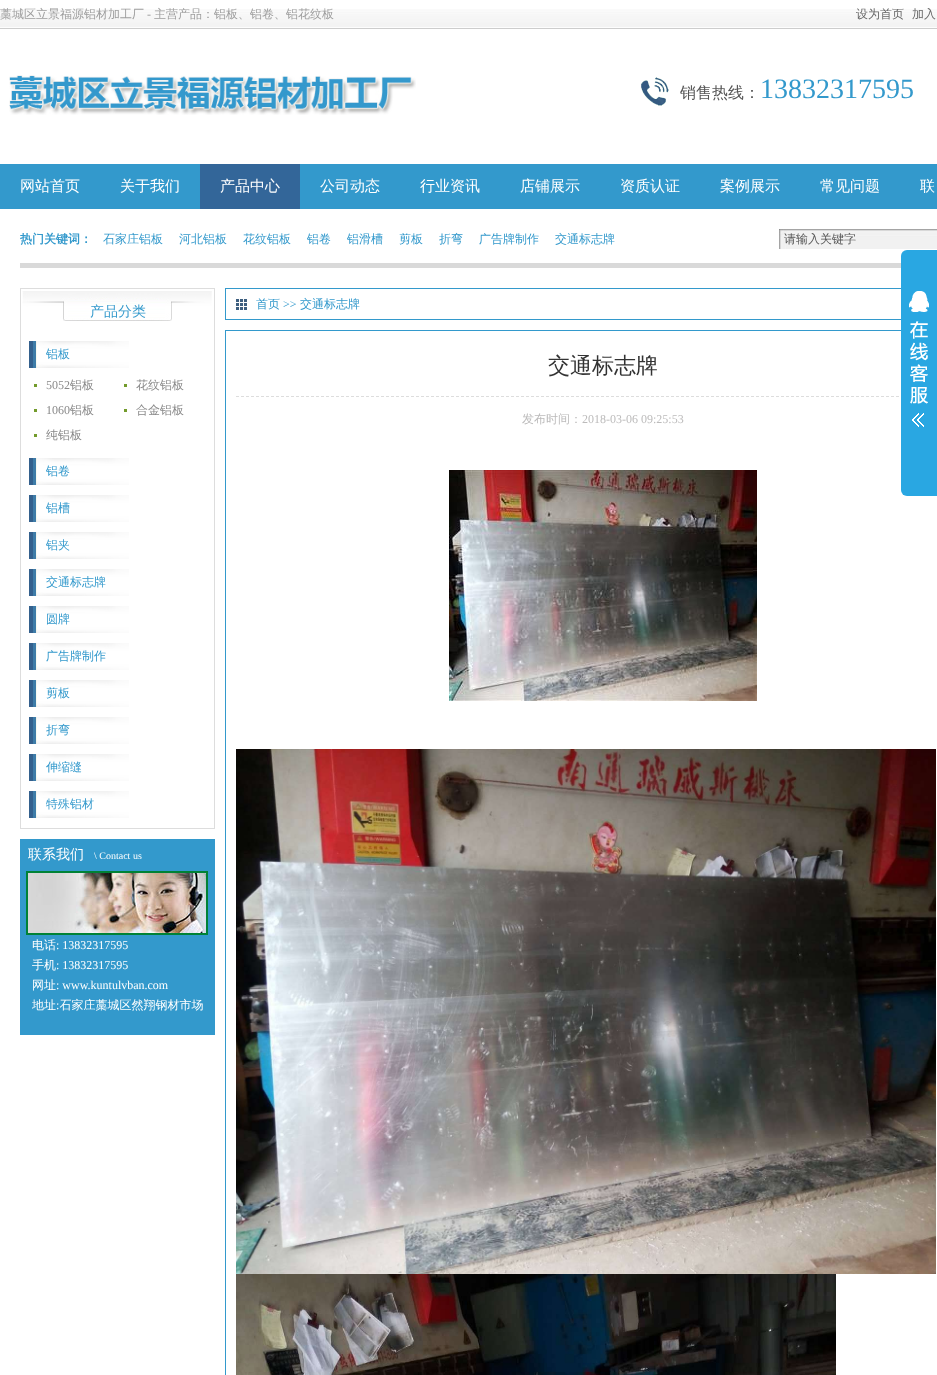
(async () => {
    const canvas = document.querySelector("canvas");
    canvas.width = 937;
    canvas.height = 1375;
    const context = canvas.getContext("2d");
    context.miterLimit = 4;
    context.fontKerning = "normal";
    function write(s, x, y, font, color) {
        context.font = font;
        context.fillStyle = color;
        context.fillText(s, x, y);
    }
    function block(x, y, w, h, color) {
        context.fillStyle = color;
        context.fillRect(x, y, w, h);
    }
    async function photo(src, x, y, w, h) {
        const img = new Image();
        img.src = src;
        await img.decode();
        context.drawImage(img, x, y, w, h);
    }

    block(0, 0, 937, 1375, "rgb(255, 255, 255)");
    await photo("media/1.png", 0, 9, 937, 20);
    write("藁城区立景福源铝材加工厂", 0, 18, "500 12px WenQuanYi Zen Hei", "rgb(157, 157, 157)");
    write("-", 147, 18, "12px Liberation Serif", "rgb(157, 157, 157)");
    write("主营产品：铝板、铝卷、铝花纹板", 154, 18, "500 12px WenQuanYi Zen Hei", "rgb(157, 157, 157)");
    write("设为首页", 856, 18, "500 12px WenQuanYi Zen Hei", "rgb(102, 102, 102)");
    write("加入", 912, 18, "500 12px WenQuanYi Zen Hei", "rgb(102, 102, 102)");
    await photo("media/2.png", 9, 75, 407, 40);
    await photo("media/3.png", 641, 77, 28, 29);
    write("销售热线：", 680, 98, "500 16px WenQuanYi Zen Hei", "rgb(86, 86, 86)");
    write("13832317595", 760, 98, "28px Liberation Serif", "rgb(51, 153, 204)");
    block(0, 164, 937, 45, "rgb(51, 153, 204)");
    write("网站首页", 20, 191, "500 15px WenQuanYi Zen Hei", "rgb(255, 255, 255)");
    write("关于我们", 120, 191, "500 15px WenQuanYi Zen Hei", "rgb(255, 255, 255)");
    block(200, 164, 100, 45, "rgb(51, 102, 153)");
    write("产品中心", 220, 191, "500 15px WenQuanYi Zen Hei", "rgb(255, 255, 255)");
    write("公司动态", 320, 191, "500 15px WenQuanYi Zen Hei", "rgb(255, 255, 255)");
    write("行业资讯", 420, 191, "500 15px WenQuanYi Zen Hei", "rgb(255, 255, 255)");
    write("店铺展示", 520, 191, "500 15px WenQuanYi Zen Hei", "rgb(255, 255, 255)");
    write("资质认证", 620, 191, "500 15px WenQuanYi Zen Hei", "rgb(255, 255, 255)");
    write("案例展示", 720, 191, "500 15px WenQuanYi Zen Hei", "rgb(255, 255, 255)");
    write("常见问题", 820, 191, "500 15px WenQuanYi Zen Hei", "rgb(255, 255, 255)");
    write("联", 920, 191, "500 15px WenQuanYi Zen Hei", "rgb(255, 255, 255)");
    block(20, 263, 881, 5, "rgb(217, 217, 217)");
    write("热门关键词：", 20, 243, "bold 12px WenQuanYi Zen Hei", "rgb(51, 153, 204)");
    write("石家庄铝板", 103, 243, "500 12px WenQuanYi Zen Hei", "rgb(51, 153, 204)");
    write("河北铝板", 179, 243, "500 12px WenQuanYi Zen Hei", "rgb(51, 153, 204)");
    write("花纹铝板", 243, 243, "500 12px WenQuanYi Zen Hei", "rgb(51, 153, 204)");
    write("铝卷", 307, 243, "500 12px WenQuanYi Zen Hei", "rgb(51, 153, 204)");
    write("铝滑槽", 347, 243, "500 12px WenQuanYi Zen Hei", "rgb(51, 153, 204)");
    write("剪板", 399, 243, "500 12px WenQuanYi Zen Hei", "rgb(51, 153, 204)");
    write("折弯", 439, 243, "500 12px WenQuanYi Zen Hei", "rgb(51, 153, 204)");
    write("广告牌制作", 479, 243, "500 12px WenQuanYi Zen Hei", "rgb(51, 153, 204)");
    write("交通标志牌", 555, 243, "500 12px WenQuanYi Zen Hei", "rgb(51, 153, 204)");
    await photo("media/4.png", 779, 229, 158, 20);
    write("请输入关键字", 784, 243, "500 12px WenQuanYi Zen Hei", "rgb(86, 86, 86)");
    context.strokeStyle = "rgb(221, 221, 221)";
    context.strokeRect(20.5, 288.5, 194, 540);
    await photo("media/5.png", 22, 291, 190, 30);
    write("产品分类", 90, 316, "500 14px WenQuanYi Zen Hei", "rgb(51, 153, 204)");
    await photo("media/6.png", 29, 341, 100, 27);
    write("铝板", 46, 358, "500 12px WenQuanYi Zen Hei", "rgb(51, 153, 204)");
    block(34, 384, 3, 3, "rgb(115, 155, 43)");
    write("5052", 46, 389, "12px Liberation Serif", "rgb(137, 137, 137)");
    write("铝板", 70, 389, "500 12px WenQuanYi Zen Hei", "rgb(137, 137, 137)");
    block(124, 384, 3, 3, "rgb(115, 155, 43)");
    write("花纹铝板", 136, 389, "500 12px WenQuanYi Zen Hei", "rgb(137, 137, 137)");
    block(34, 409, 3, 3, "rgb(115, 155, 43)");
    write("1060", 46, 414, "12px Liberation Serif", "rgb(137, 137, 137)");
    write("铝板", 70, 414, "500 12px WenQuanYi Zen Hei", "rgb(137, 137, 137)");
    block(124, 409, 3, 3, "rgb(115, 155, 43)");
    write("合金铝板", 136, 414, "500 12px WenQuanYi Zen Hei", "rgb(137, 137, 137)");
    block(34, 434, 3, 3, "rgb(115, 155, 43)");
    write("纯铝板", 46, 439, "500 12px WenQuanYi Zen Hei", "rgb(137, 137, 137)");
    await photo("media/6.png", 29, 458, 100, 27);
    write("铝卷", 46, 475, "500 12px WenQuanYi Zen Hei", "rgb(51, 153, 204)");
    await photo("media/6.png", 29, 495, 100, 27);
    write("铝槽", 46, 512, "500 12px WenQuanYi Zen Hei", "rgb(51, 153, 204)");
    await photo("media/6.png", 29, 532, 100, 27);
    write("铝夹", 46, 549, "500 12px WenQuanYi Zen Hei", "rgb(51, 153, 204)");
    await photo("media/6.png", 29, 569, 100, 27);
    write("交通标志牌", 46, 586, "500 12px WenQuanYi Zen Hei", "rgb(51, 153, 204)");
    await photo("media/6.png", 29, 606, 100, 27);
    write("圆牌", 46, 623, "500 12px WenQuanYi Zen Hei", "rgb(51, 153, 204)");
    await photo("media/6.png", 29, 643, 100, 27);
    write("广告牌制作", 46, 660, "500 12px WenQuanYi Zen Hei", "rgb(51, 153, 204)");
    await photo("media/6.png", 29, 680, 100, 27);
    write("剪板", 46, 697, "500 12px WenQuanYi Zen Hei", "rgb(51, 153, 204)");
    await photo("media/6.png", 29, 717, 100, 27);
    write("折弯", 46, 734, "500 12px WenQuanYi Zen Hei", "rgb(51, 153, 204)");
    await photo("media/6.png", 29, 754, 100, 27);
    write("伸缩缝", 46, 771, "500 12px WenQuanYi Zen Hei", "rgb(51, 153, 204)");
    await photo("media/6.png", 29, 791, 100, 27);
    write("特殊铝材", 46, 808, "500 12px WenQuanYi Zen Hei", "rgb(51, 153, 204)");
    block(20, 839, 195, 196, "rgb(51, 153, 204)");
    write("联系我们", 28, 859, "500 14px WenQuanYi Zen Hei", "rgb(255, 255, 255)");
    write("\\ Contact us", 94, 859, "10px Liberation Serif", "rgb(255, 255, 255)");
    context.strokeStyle = "rgb(0, 130, 54)";
    context.lineWidth = 2;
    context.strokeRect(27, 872, 180, 62);
    await photo("media/7.png", 28, 873, 178, 60);
    write("电话", 32, 949, "500 12px WenQuanYi Zen Hei", "rgb(255, 255, 255)");
    write(": 13832317595", 56, 949, "12px Liberation Serif", "rgb(255, 255, 255)");
    write("手机", 32, 969, "500 12px WenQuanYi Zen Hei", "rgb(255, 255, 255)");
    write(": 13832317595", 56, 969, "12px Liberation Serif", "rgb(255, 255, 255)");
    write("网址", 32, 989, "500 12px WenQuanYi Zen Hei", "rgb(255, 255, 255)");
    write(": www.kuntulvban.com", 56, 989, "12px Liberation Serif", "rgb(255, 255, 255)");
    write("地址 石家庄藁城区然翔钢材市场", 32, 1009, "500 12px WenQuanYi Zen Hei", "rgb(255, 255, 255)");
    write(":", 56, 1009, "12px Liberation Serif", "rgb(255, 255, 255)");
    await photo("media/8.png", 236, 299, 11, 11);
    context.strokeStyle = "rgb(51, 153, 204)";
    context.lineWidth = 1;
    context.strokeRect(225.5, 288.5, 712, 31);
    write("首页", 256, 308, "500 12px WenQuanYi Zen Hei", "rgb(51, 153, 204)");
    write(">>", 283, 308, "12px Liberation Serif", "rgb(51, 153, 204)");
    write("交通标志牌", 300, 308, "500 12px WenQuanYi Zen Hei", "rgb(51, 153, 204)");
    context.strokeRect(225.5, 330.5, 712, 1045);
    context.beginPath();
    context.moveTo(236, 396.5);
    context.lineTo(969, 396.5);
    context.strokeStyle = "rgb(221, 221, 221)";
    context.setLineDash([3, 2]);
    context.stroke();
    write("交通标志牌", 548, 373, "500 22px WenQuanYi Zen Hei", "rgb(51, 51, 51)");
    write("发布时间：", 522, 423, "500 12px WenQuanYi Zen Hei", "rgb(188, 187, 187)");
    write("2018-03-06 09:25:53", 582, 423, "12px Liberation Serif", "rgb(188, 187, 187)");
    await photo("media/9.png", 449, 470, 308, 231);
    await photo("media/10.png", 236, 749, 700, 525);
    await photo("media/11.png", 236, 1274, 600, 101);
    context.fillStyle = "rgb(41, 167, 226)";
    context.beginPath();
    context.roundRect(901, 250, 36, 246, [6, 0, 0, 6]);
    context.fill();
    await photo("media/12.png", 909, 291, 20, 136);
})();
